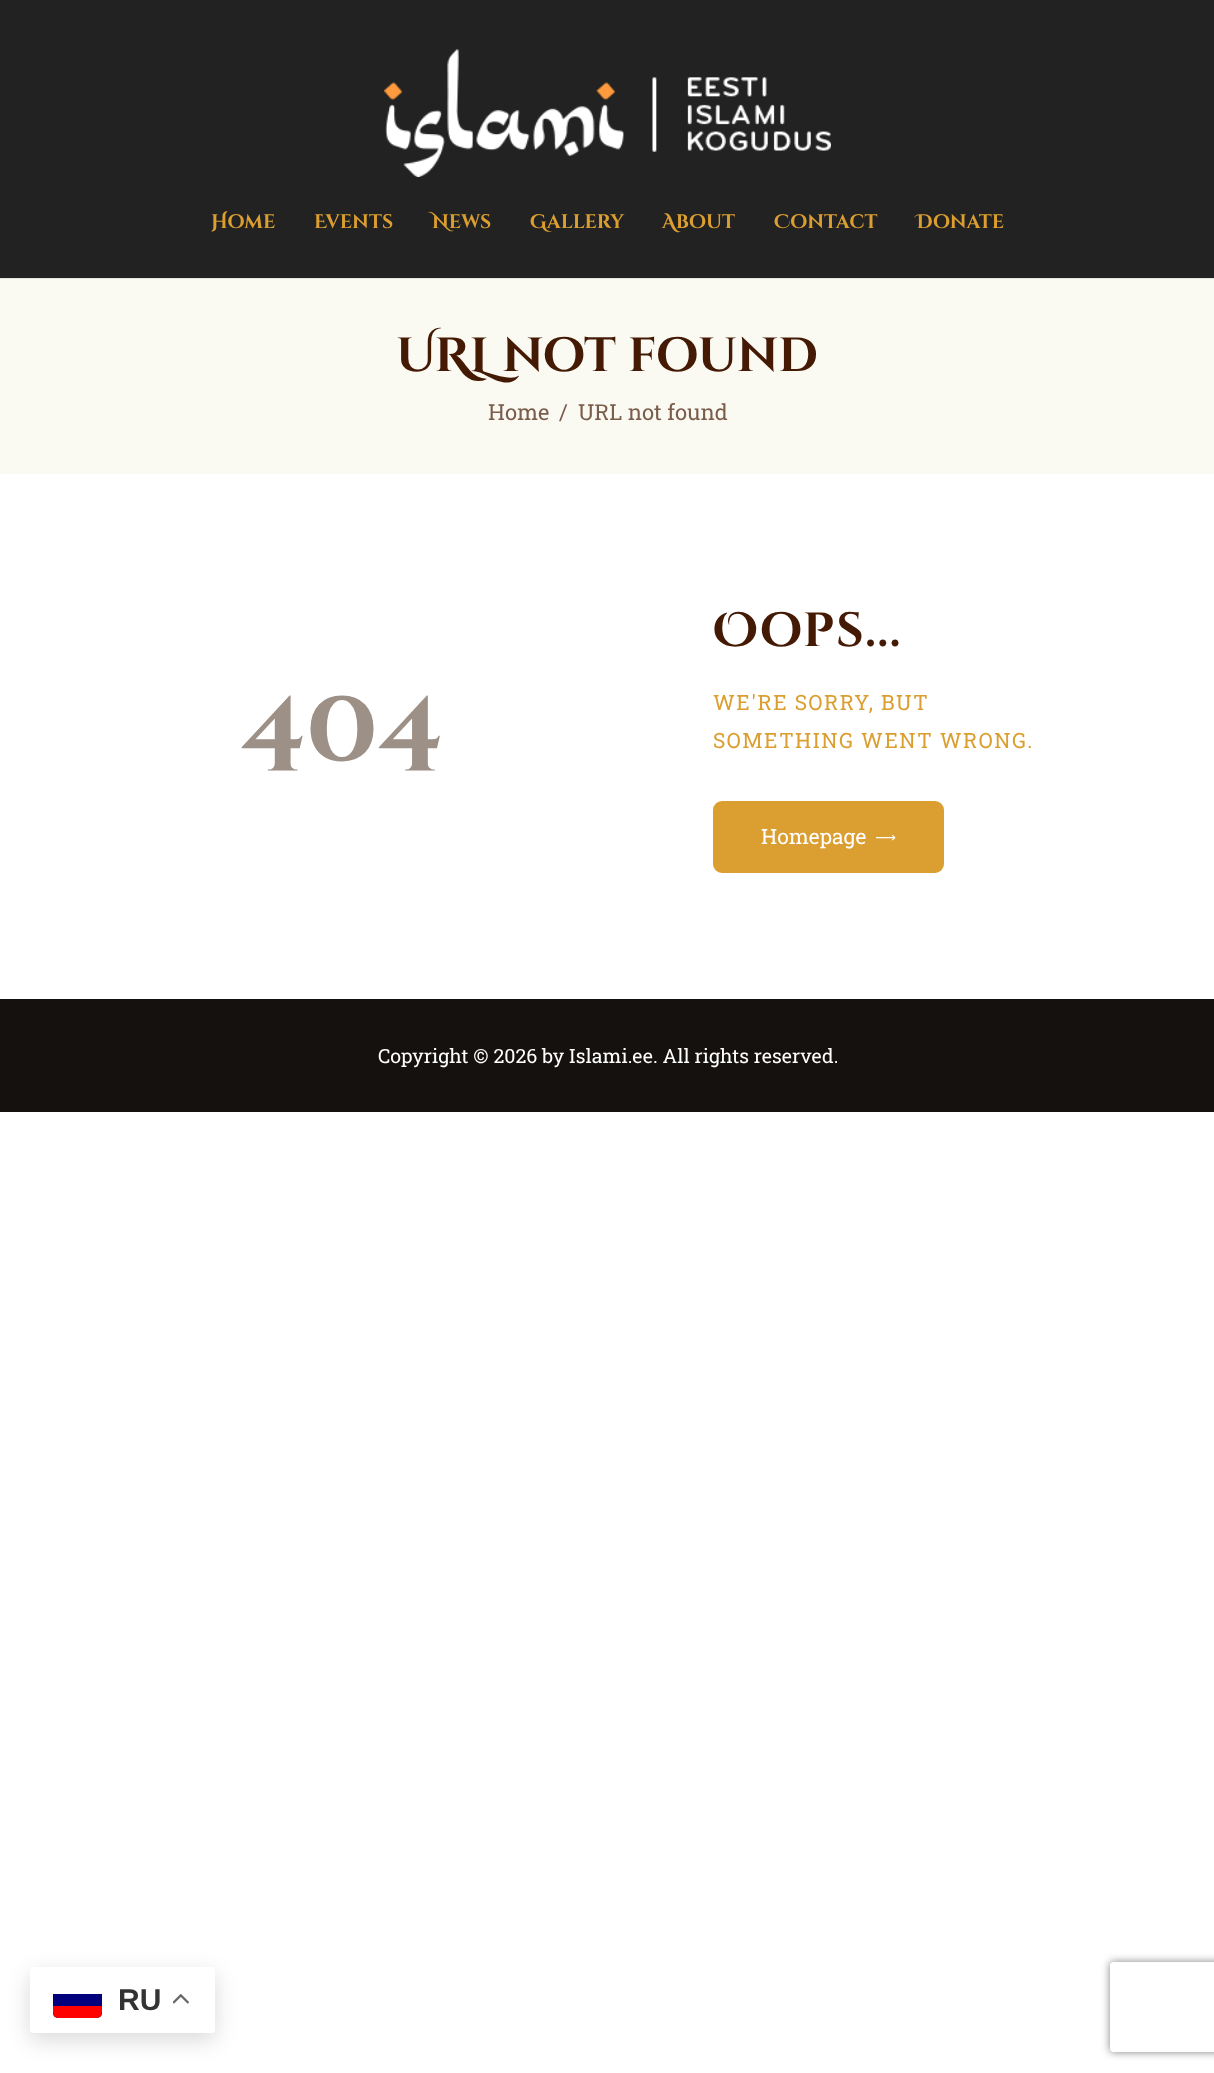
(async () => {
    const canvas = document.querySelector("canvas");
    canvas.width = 1214;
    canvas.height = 2073;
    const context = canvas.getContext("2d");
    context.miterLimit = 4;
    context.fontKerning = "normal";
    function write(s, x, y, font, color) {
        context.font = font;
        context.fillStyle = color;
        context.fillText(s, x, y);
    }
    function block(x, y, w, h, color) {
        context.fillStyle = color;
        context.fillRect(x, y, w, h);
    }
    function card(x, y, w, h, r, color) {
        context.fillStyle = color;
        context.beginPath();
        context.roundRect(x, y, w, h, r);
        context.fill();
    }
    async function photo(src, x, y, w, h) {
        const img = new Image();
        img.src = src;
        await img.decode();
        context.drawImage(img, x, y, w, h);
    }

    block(0, 0, 1214, 2073, "rgb(255, 255, 255)");
    block(0, 0, 1214, 278, "rgb(34, 34, 34)");
    block(0, 278, 1214, 1, "rgb(229, 229, 229)");
    await photo("media/1.png", 384, 49, 447, 128);
    write("Home", 211, 228, "bold 19.5px Cinzel Decorative", "rgb(219, 158, 48)");
    write("Events", 314, 228, "bold 19.5px Cinzel Decorative", "rgb(219, 158, 48)");
    write("News", 432, 228, "bold 19.5px Cinzel Decorative", "rgb(219, 158, 48)");
    write("Gallery", 530, 228, "bold 19.5px Cinzel Decorative", "rgb(219, 158, 48)");
    write("About", 662, 228, "bold 19.5px Cinzel Decorative", "rgb(219, 158, 48)");
    write("Contact", 774, 228, "bold 19.5px Cinzel Decorative", "rgb(219, 158, 48)");
    write("Donate", 916, 228, "bold 19.5px Cinzel Decorative", "rgb(219, 158, 48)");
    block(0, 279, 1214, 195, "rgb(250, 250, 242)");
    write("URL not found", 396, 371, "bold 48px Cinzel Decorative", "rgb(68, 26, 5)");
    write("Home", 488, 420, "22px Roboto Slab", "rgb(123, 93, 76)");
    write("/", 559, 420, "22px Roboto Slab", "rgb(123, 93, 76)");
    write("URL not found", 578, 420, "22px Roboto Slab", "rgb(123, 93, 76)");
    write("404", 241, 760, "bold 105px Cinzel Decorative", "rgb(157, 144, 135)");
    context.letterSpacing = "1.5px";
    write("Oops...", 713, 646, "bold 48px Cinzel Decorative", "rgb(68, 26, 5)");
    write("WE'RE SORRY, BUT", 713, 710, "21px Roboto Slab", "rgb(219, 158, 48)");
    write("SOMETHING WENT WRONG.", 713, 748, "21px Roboto Slab", "rgb(219, 158, 48)");
    card(713, 801, 231, 72, 9, "rgb(219, 158, 48)");
    context.letterSpacing = "0px";
    write("Homepage", 761, 844, "21px Roboto Slab", "rgb(255, 255, 255)");
    await photo("media/2.png", 876, 834, 20, 7);
    block(0, 999, 1214, 113, "rgb(21, 17, 14)");
    write("Copyright © 2026 by Islami.ee. All rights reserved.", 378, 1063, "19.6px Roboto Slab", "rgb(255, 255, 255)");
    context.fillStyle = "rgba(0, 0, 0, 0.15)";
    context.filter = "blur(11px)";
    context.beginPath();
    context.roundRect(30, 1974, 185, 66, 3);
    context.fill();
    context.filter = "none";
    card(30, 1967, 185, 66, 3, "rgb(255, 255, 255)");
    context.fillStyle = "rgb(1, 1, 126)";
    context.beginPath();
    context.roundRect(53, 1994, 49, 24, [0, 0, 5, 5]);
    context.fill();
    context.fillStyle = "rgb(254, 1, 1)";
    context.beginPath();
    context.roundRect(53, 2006, 49, 12, [0, 0, 5, 5]);
    context.fill();
    write("RU", 118, 2010, "bold 30px Liberation Sans", "rgb(51, 51, 51)");
    await photo("media/3.png", 173, 1994, 16, 10);
    context.save();
    context.beginPath();
    context.moveTo(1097, 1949);
    context.lineTo(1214, 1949);
    context.lineTo(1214, 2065);
    context.lineTo(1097, 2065);
    context.closePath();
    context.moveTo(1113, 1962);
    context.lineTo(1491, 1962);
    context.bezierCurveTo(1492.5, 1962, 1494, 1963.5, 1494, 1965);
    context.lineTo(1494, 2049);
    context.bezierCurveTo(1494, 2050.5, 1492.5, 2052, 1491, 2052);
    context.lineTo(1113, 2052);
    context.bezierCurveTo(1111.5, 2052, 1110, 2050.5, 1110, 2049);
    context.lineTo(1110, 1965);
    context.bezierCurveTo(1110, 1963.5, 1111.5, 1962, 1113, 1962);
    context.closePath();
    context.clip("evenodd");
    context.fillStyle = "rgb(128, 128, 128)";
    context.filter = "blur(4px)";
    context.beginPath();
    context.roundRect(1110, 1962, 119, 90, 3);
    context.fill();
    context.filter = "none";
    context.restore();
})();
